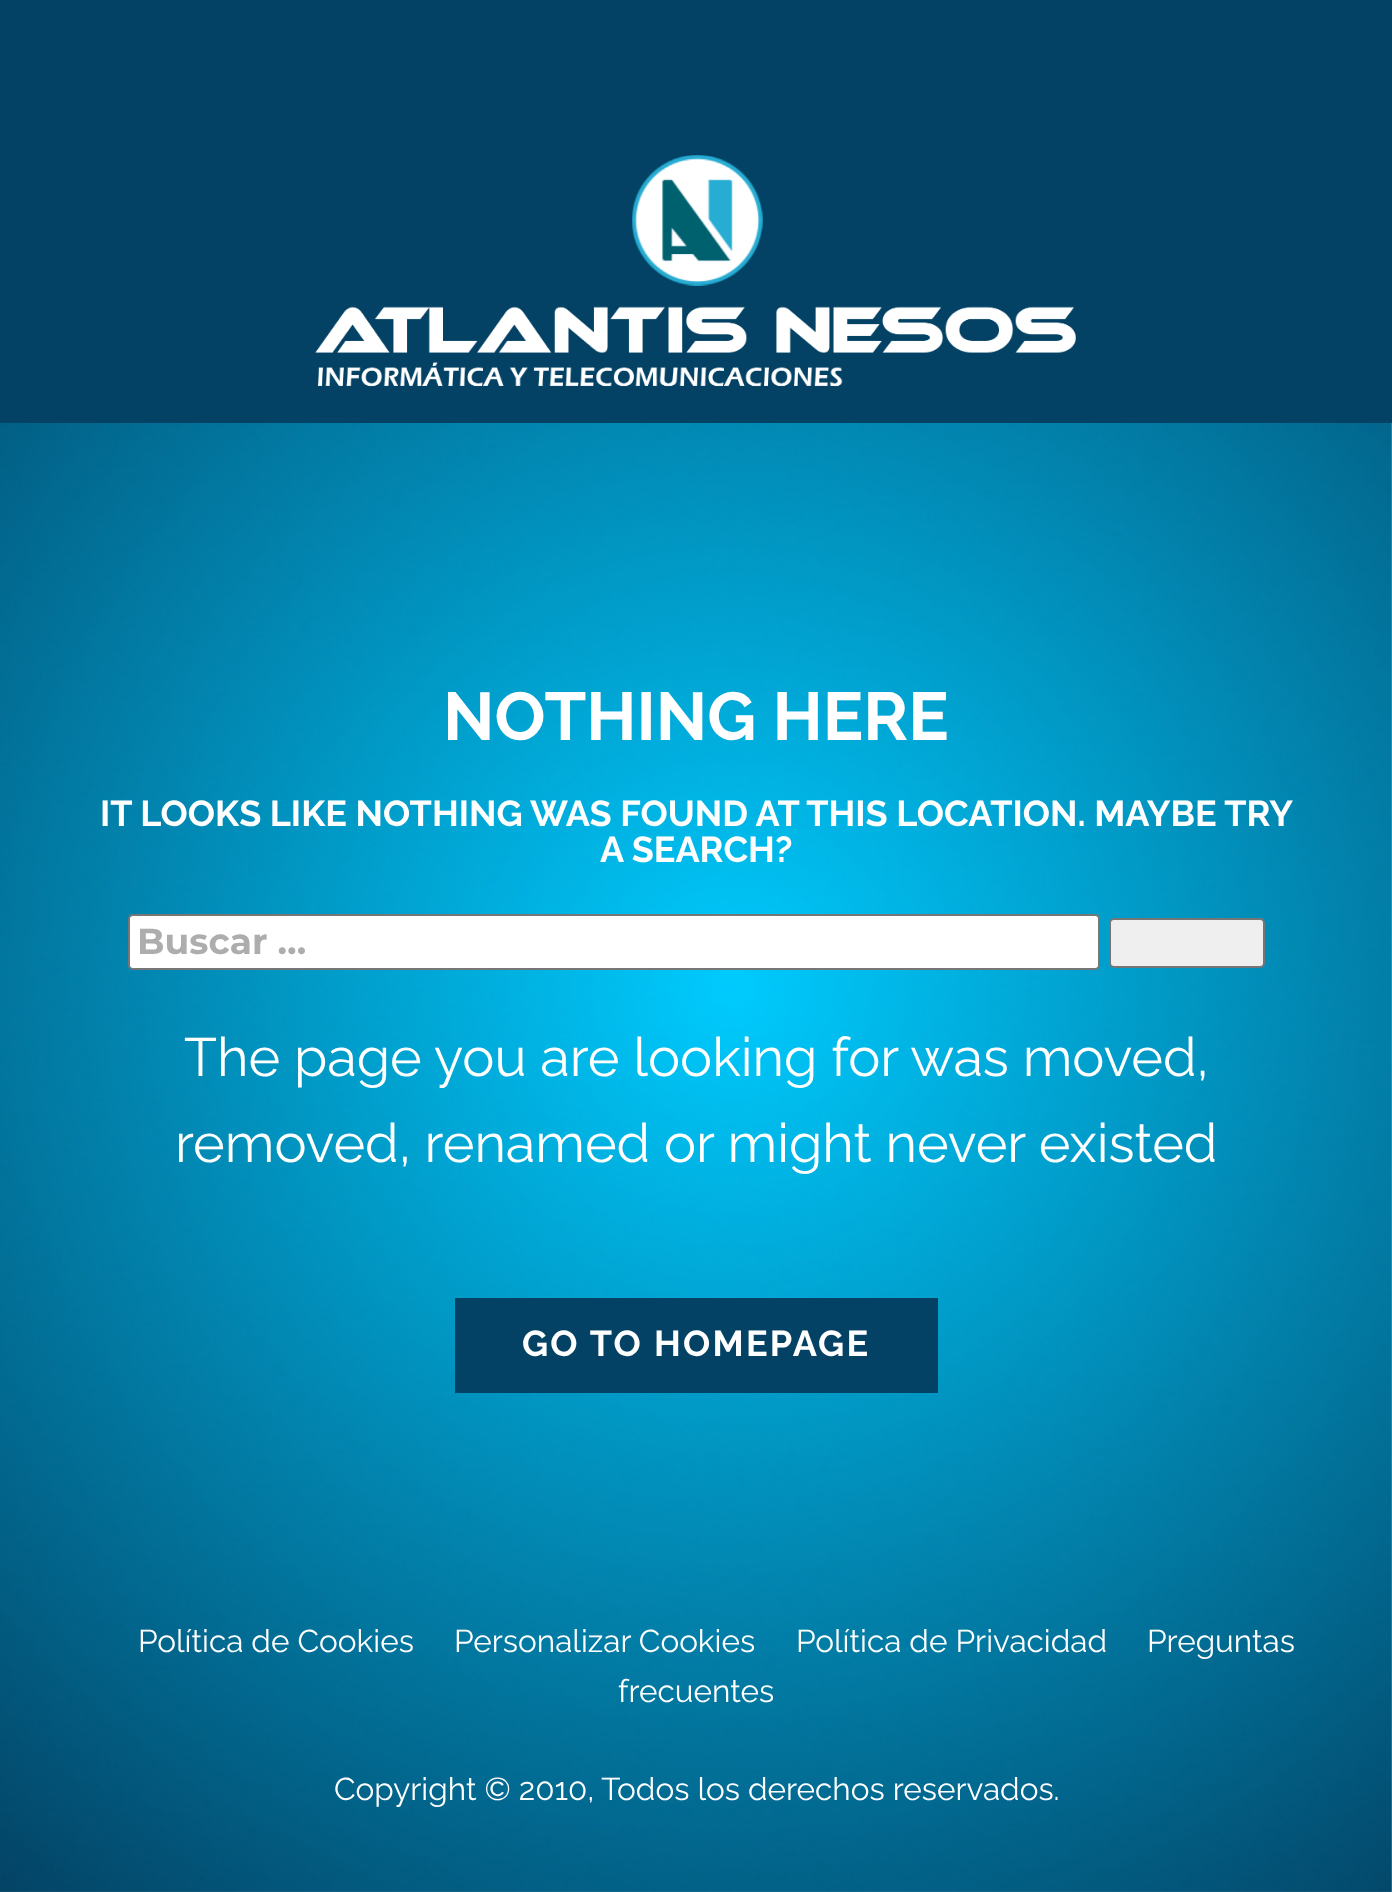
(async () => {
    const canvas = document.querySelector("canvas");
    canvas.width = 1392;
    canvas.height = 1892;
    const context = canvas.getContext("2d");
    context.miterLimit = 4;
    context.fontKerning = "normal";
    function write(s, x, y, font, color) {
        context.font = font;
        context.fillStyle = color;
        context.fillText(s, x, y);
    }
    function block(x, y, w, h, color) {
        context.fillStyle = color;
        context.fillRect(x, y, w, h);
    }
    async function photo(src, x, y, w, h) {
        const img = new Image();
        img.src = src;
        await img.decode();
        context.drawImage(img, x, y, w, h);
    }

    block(0, 0, 1392, 1892, "rgb(255, 255, 255)");
    await photo("media/1.png", 0, 423, 1392, 1469);
    block(0, 0, 1392, 423, "rgb(3, 66, 100)");
    await photo("media/2.png", 632, 155, 131, 131);
    await photo("media/3.png", 315, 306, 761, 81);
    write("NOTHING HERE", 443, 740, "bold 67.5px Raleway", "rgb(255, 255, 255)");
    write("IT LOOKS LIKE NOTHING WAS FOUND AT THIS LOCATION. MAYBE TRY", 100, 826, "bold 36px Raleway", "rgb(255, 255, 255)");
    write("A SEARCH?", 600, 862, "bold 36px Raleway", "rgb(255, 255, 255)");
    context.beginPath();
    context.roundRect(129, 915, 970, 54, 4);
    context.fill();
    context.strokeStyle = "rgb(118, 118, 118)";
    context.lineWidth = 2;
    context.stroke();
    write("Buscar …", 137, 954, "bold 36px Montserrat", "rgb(173, 173, 173)");
    context.fillStyle = "rgb(239, 239, 239)";
    context.beginPath();
    context.roundRect(1110, 919, 154, 48, 4);
    context.fill();
    context.stroke();
    write("The page you are looking for was moved,", 184, 1076, "54px Raleway", "rgb(255, 255, 255)");
    write("removed, renamed or might never existed", 175, 1162, "54px Raleway", "rgb(255, 255, 255)");
    block(455, 1298, 483, 95, "rgb(3, 66, 100)");
    context.letterSpacing = "2.25px";
    write("GO TO HOMEPAGE", 522, 1356, "bold 36px Raleway", "rgb(255, 255, 255)");
    context.letterSpacing = "0px";
    write("Política de Cookies", 138, 1652, "31.5px Raleway", "rgb(255, 255, 255)");
    write("Personalizar Cookies", 454, 1652, "31.5px Raleway", "rgb(255, 255, 255)");
    write("Política de Privacidad", 796, 1652, "31.5px Raleway", "rgb(255, 255, 255)");
    write("Preguntas", 1147, 1652, "31.5px Raleway", "rgb(255, 255, 255)");
    write("frecuentes", 618, 1702, "31.5px Raleway", "rgb(255, 255, 255)");
    write("Copyright © 2010, Todos los derechos reservados.", 334, 1800, "31.5px Raleway", "rgb(255, 255, 255)");
})();
